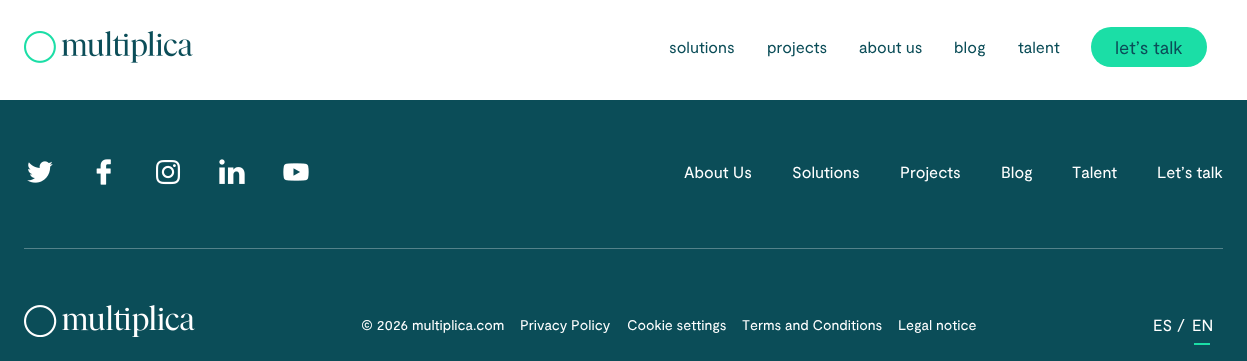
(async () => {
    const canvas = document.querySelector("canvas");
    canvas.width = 1247;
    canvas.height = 361;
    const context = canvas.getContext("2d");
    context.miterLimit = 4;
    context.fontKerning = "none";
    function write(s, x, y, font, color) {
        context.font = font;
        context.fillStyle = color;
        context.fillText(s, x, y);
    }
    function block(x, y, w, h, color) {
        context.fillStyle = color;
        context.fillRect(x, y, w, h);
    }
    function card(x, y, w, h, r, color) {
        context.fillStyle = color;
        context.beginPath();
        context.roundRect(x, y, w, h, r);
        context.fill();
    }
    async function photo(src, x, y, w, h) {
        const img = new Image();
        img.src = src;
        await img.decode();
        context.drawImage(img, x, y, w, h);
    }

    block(0, 0, 1247, 361, "rgb(255, 255, 255)");
    await photo("media/1.png", 24, 31, 169, 32);
    write("solutions", 669, 53, "16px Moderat", "rgb(11, 77, 88)");
    write("projects", 767, 53, "16px Moderat", "rgb(11, 77, 88)");
    write("about us", 859, 53, "16px Moderat", "rgb(11, 77, 88)");
    write("blog", 954, 53, "16px Moderat", "rgb(11, 77, 88)");
    write("talent", 1018, 53, "16px Moderat", "rgb(11, 77, 88)");
    card(1091, 27, 116, 40, 20, "rgb(27, 222, 166)");
    write("let’s talk", 1115, 54, "18px Moderat", "rgb(11, 77, 88)");
    block(0, 100, 1247, 261, "rgb(11, 77, 88)");
    block(24, 248, 1199, 1, "rgb(84, 130, 138)");
    await photo("media/2.png", 27, 161, 26, 22);
    await photo("media/3.png", 96, 159, 15, 26);
    await photo("media/4.png", 156, 160, 25, 25);
    await photo("media/5.png", 219, 159, 26, 25);
    await photo("media/6.png", 283, 163, 26, 18);
    write("About Us", 684, 178, "16px Moderat", "rgb(255, 255, 255)");
    write("Solutions", 792, 178, "16px Moderat", "rgb(255, 255, 255)");
    write("Projects", 900, 178, "16px Moderat", "rgb(255, 255, 255)");
    write("Blog", 1001, 178, "16px Moderat", "rgb(255, 255, 255)");
    write("Talent", 1072, 178, "16px Moderat", "rgb(255, 255, 255)");
    write("Let’s talk", 1157, 178, "16px Moderat", "rgb(255, 255, 255)");
    await photo("media/7.png", 24, 305, 171, 32);
    write("© 2026 multiplica.com", 361, 330, "14px Moderat", "rgb(255, 255, 255)");
    write("Privacy Policy", 520, 330, "14px Moderat", "rgb(255, 255, 255)");
    write("Cookie settings", 627, 330, "14px Moderat", "rgb(255, 255, 255)");
    write("Terms and Conditions", 742, 330, "14px Moderat", "rgb(255, 255, 255)");
    write("Legal notice", 898, 330, "14px Moderat", "rgb(255, 255, 255)");
    write("ES", 1153, 331, "16px Moderat", "rgb(255, 255, 255)");
    write("/", 1177, 331, "16px Moderat", "rgb(255, 255, 255)");
    write("EN", 1192, 331, "16px Moderat", "rgb(255, 255, 255)");
    block(1194, 343, 16, 2, "rgb(27, 222, 166)");
})();
